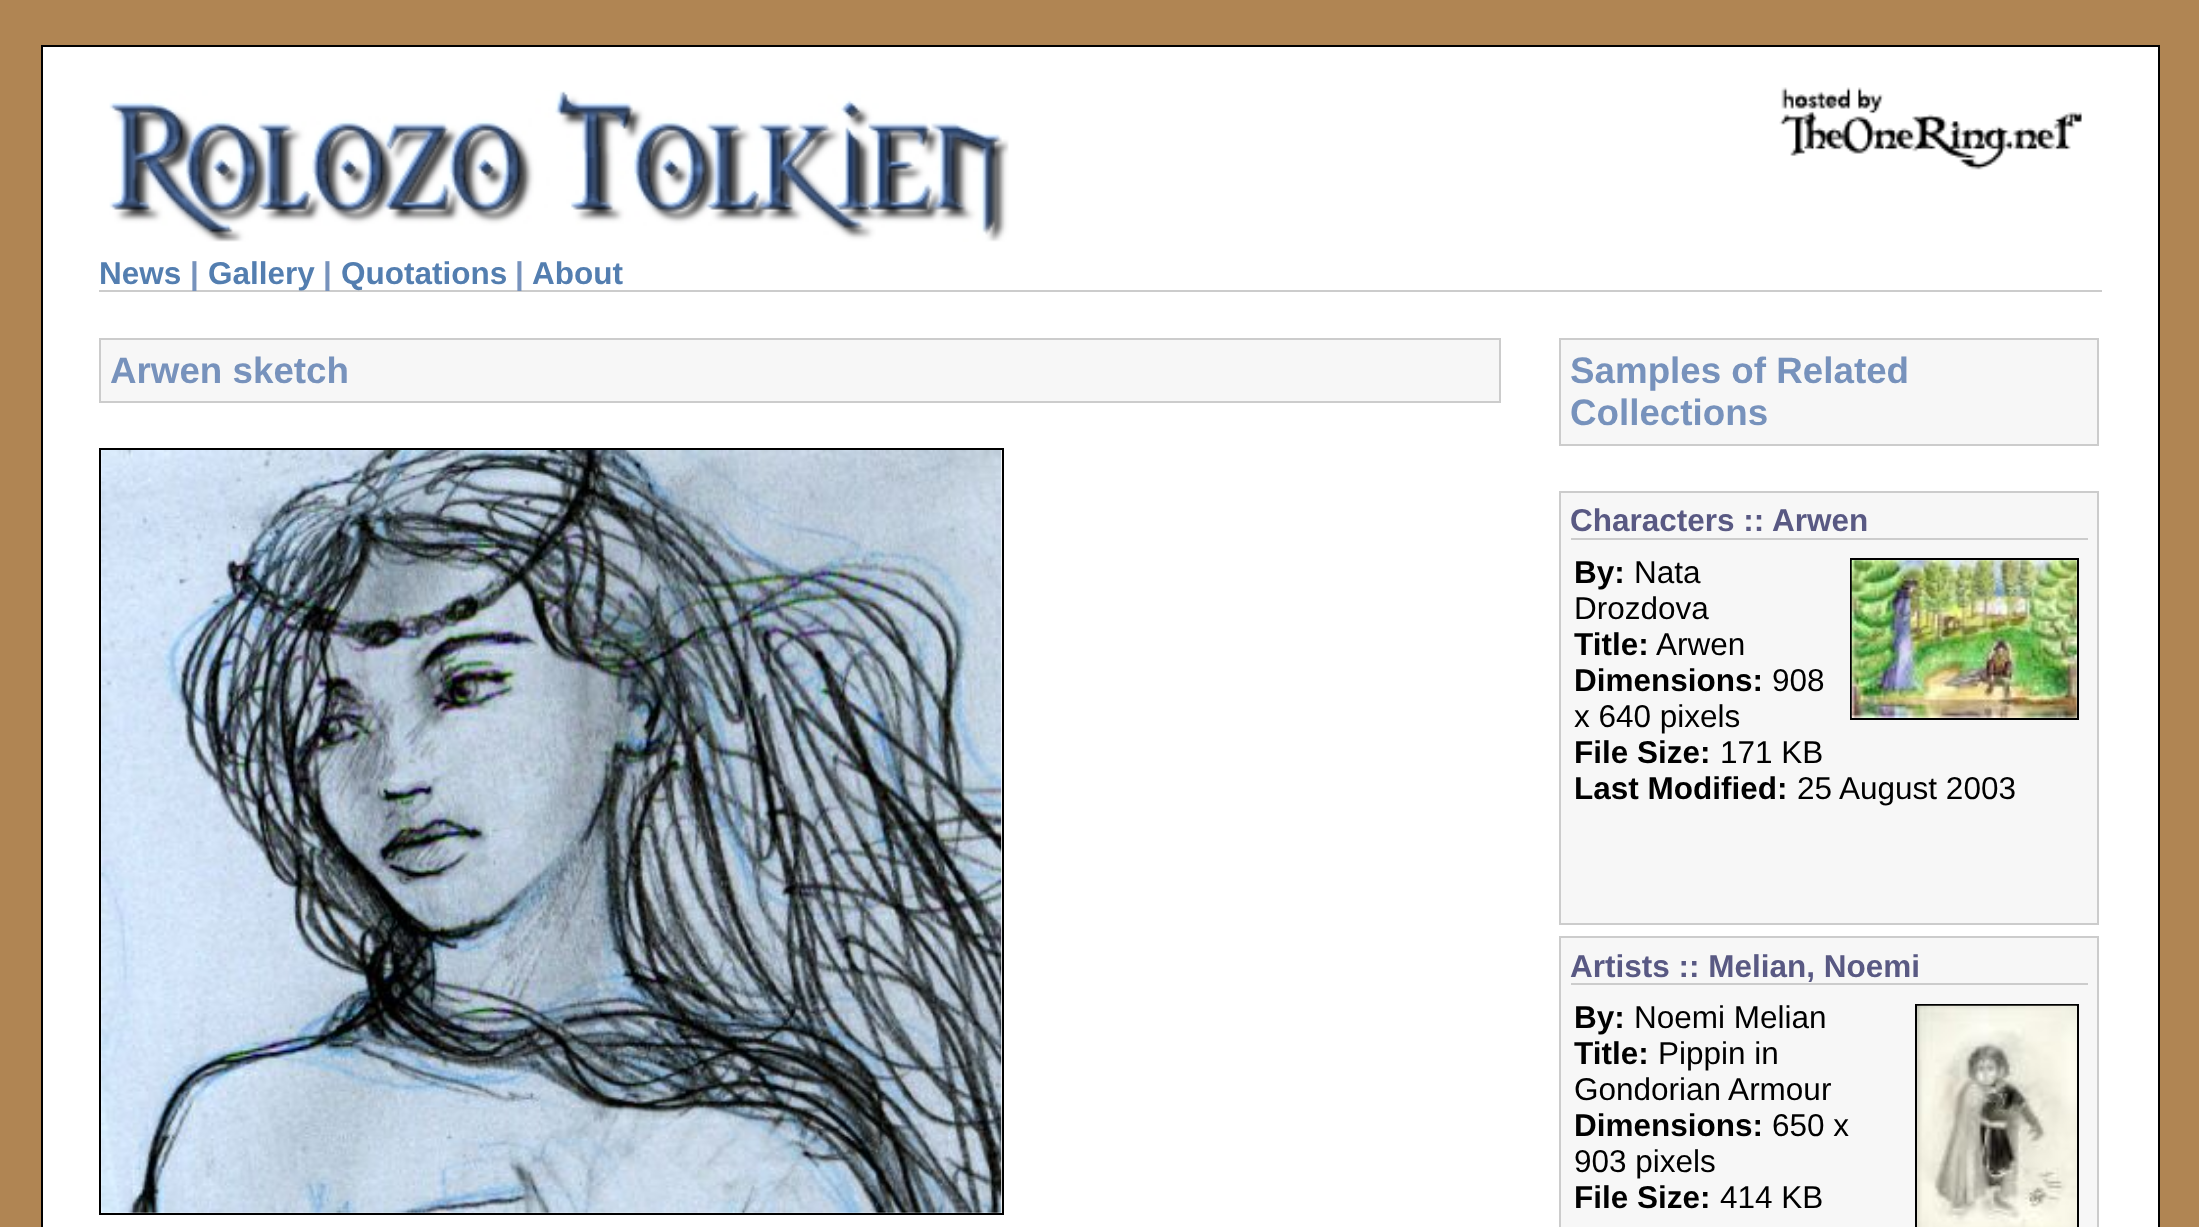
(async () => {
    const canvas = document.querySelector("canvas");
    canvas.width = 2199;
    canvas.height = 1227;
    const context = canvas.getContext("2d");
    context.miterLimit = 4;
    context.fontKerning = "normal";
    function write(s, x, y, font, color) {
        context.font = font;
        context.fillStyle = color;
        context.fillText(s, x, y);
    }
    function block(x, y, w, h, color) {
        context.fillStyle = color;
        context.fillRect(x, y, w, h);
    }
    async function photo(src, x, y, w, h) {
        const img = new Image();
        img.src = src;
        await img.decode();
        context.drawImage(img, x, y, w, h);
    }

    block(0, 0, 2199, 1227, "rgb(176, 133, 83)");
    context.fillStyle = "rgb(255, 255, 255)";
    context.beginPath();
    context.rect(42, 46, 2117, 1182);
    context.fill();
    context.strokeStyle = "rgb(0, 0, 0)";
    context.lineWidth = 2;
    context.stroke();
    await photo("media/1.png", 109, 90, 900, 152);
    await photo("media/2.png", 1779, 87, 303, 83);
    block(99, 290, 2003, 2, "rgb(204, 204, 204)");
    write("News", 99, 284, "bold 31.5px Liberation Sans", "rgb(83, 126, 176)");
    write("|", 190, 284, "bold 31.5px Liberation Sans", "rgb(119, 146, 188)");
    write("Gallery", 208, 284, "bold 31.5px Liberation Sans", "rgb(83, 126, 176)");
    write("|", 323, 284, "bold 31.5px Liberation Sans", "rgb(119, 146, 188)");
    write("Quotations", 341, 284, "bold 31.5px Liberation Sans", "rgb(83, 126, 176)");
    write("|", 515, 284, "bold 31.5px Liberation Sans", "rgb(119, 146, 188)");
    write("About", 532, 284, "bold 31.5px Liberation Sans", "rgb(83, 126, 176)");
    context.fillStyle = "rgb(247, 247, 247)";
    context.beginPath();
    context.rect(100, 339, 1400, 63);
    context.fill();
    context.strokeStyle = "rgb(204, 204, 204)";
    context.stroke();
    write("Arwen sketch", 110, 383, "bold 36.75px Liberation Sans", "rgb(119, 146, 188)");
    context.strokeStyle = "rgb(0, 0, 0)";
    context.strokeRect(100, 449, 903, 765);
    await photo("media/3.png", 101, 450, 901, 763);
    context.fillStyle = "rgb(247, 247, 247)";
    context.beginPath();
    context.rect(1560, 339, 538, 106);
    context.fill();
    context.strokeStyle = "rgb(204, 204, 204)";
    context.stroke();
    write("Samples of Related", 1570, 383, "bold 36.75px Liberation Sans", "rgb(119, 146, 188)");
    write("Collections", 1570, 425, "bold 36.75px Liberation Sans", "rgb(119, 146, 188)");
    context.fillStyle = "rgb(247, 247, 247)";
    context.beginPath();
    context.rect(1560, 492, 538, 432);
    context.fill();
    context.stroke();
    block(1571, 538, 517, 2, "rgb(204, 204, 204)");
    write("Characters :: Arwen", 1570, 531, "bold 31.5px Liberation Sans", "rgb(89, 89, 131)");
    context.strokeStyle = "rgb(0, 0, 0)";
    context.strokeRect(1851, 559, 227, 160);
    await photo("media/4.png", 1851, 560, 226, 158);
    write("By:", 1574, 583, "bold 31.5px Liberation Sans", "rgb(0, 0, 0)");
    write("Nata", 1634, 583, "31.5px Liberation Sans", "rgb(0, 0, 0)");
    write("Drozdova", 1574, 619, "31.5px Liberation Sans", "rgb(0, 0, 0)");
    write("Title:", 1574, 655, "bold 31.5px Liberation Sans", "rgb(0, 0, 0)");
    write("Arwen", 1656, 655, "31.5px Liberation Sans", "rgb(0, 0, 0)");
    write("Dimensions:", 1574, 691, "bold 31.5px Liberation Sans", "rgb(0, 0, 0)");
    write("908", 1772, 691, "31.5px Liberation Sans", "rgb(0, 0, 0)");
    write("x 640 pixels", 1574, 727, "31.5px Liberation Sans", "rgb(0, 0, 0)");
    write("File Size:", 1574, 763, "bold 31.5px Liberation Sans", "rgb(0, 0, 0)");
    write("171 KB", 1720, 763, "31.5px Liberation Sans", "rgb(0, 0, 0)");
    write("Last Modified:", 1574, 799, "bold 31.5px Liberation Sans", "rgb(0, 0, 0)");
    write("25 August 2003", 1797, 799, "31.5px Liberation Sans", "rgb(0, 0, 0)");
    context.fillStyle = "rgb(247, 247, 247)";
    context.beginPath();
    context.rect(1560, 937, 538, 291);
    context.fill();
    context.strokeStyle = "rgb(204, 204, 204)";
    context.stroke();
    block(1571, 983, 517, 2, "rgb(204, 204, 204)");
    write("Artists :: Melian, Noemi", 1570, 977, "bold 31.5px Liberation Sans", "rgb(89, 89, 131)");
    write("By:", 1574, 1028, "bold 31.5px Liberation Sans", "rgb(0, 0, 0)");
    write("Noemi Melian", 1634, 1028, "31.5px Liberation Sans", "rgb(0, 0, 0)");
    write("Title:", 1574, 1064, "bold 31.5px Liberation Sans", "rgb(0, 0, 0)");
    write("Pippin in", 1658, 1064, "31.5px Liberation Sans", "rgb(0, 0, 0)");
    write("Gondorian Armour", 1574, 1100, "31.5px Liberation Sans", "rgb(0, 0, 0)");
    write("Dimensions:", 1574, 1136, "bold 31.5px Liberation Sans", "rgb(0, 0, 0)");
    write("650 x", 1772, 1136, "31.5px Liberation Sans", "rgb(0, 0, 0)");
    write("903 pixels", 1574, 1172, "31.5px Liberation Sans", "rgb(0, 0, 0)");
    write("File Size:", 1574, 1208, "bold 31.5px Liberation Sans", "rgb(0, 0, 0)");
    write("414 KB", 1720, 1208, "31.5px Liberation Sans", "rgb(0, 0, 0)");
    context.strokeStyle = "rgb(0, 0, 0)";
    context.strokeRect(1916, 1005, 162, 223);
    await photo("media/5.png", 1917, 1005, 160, 222);
})();
